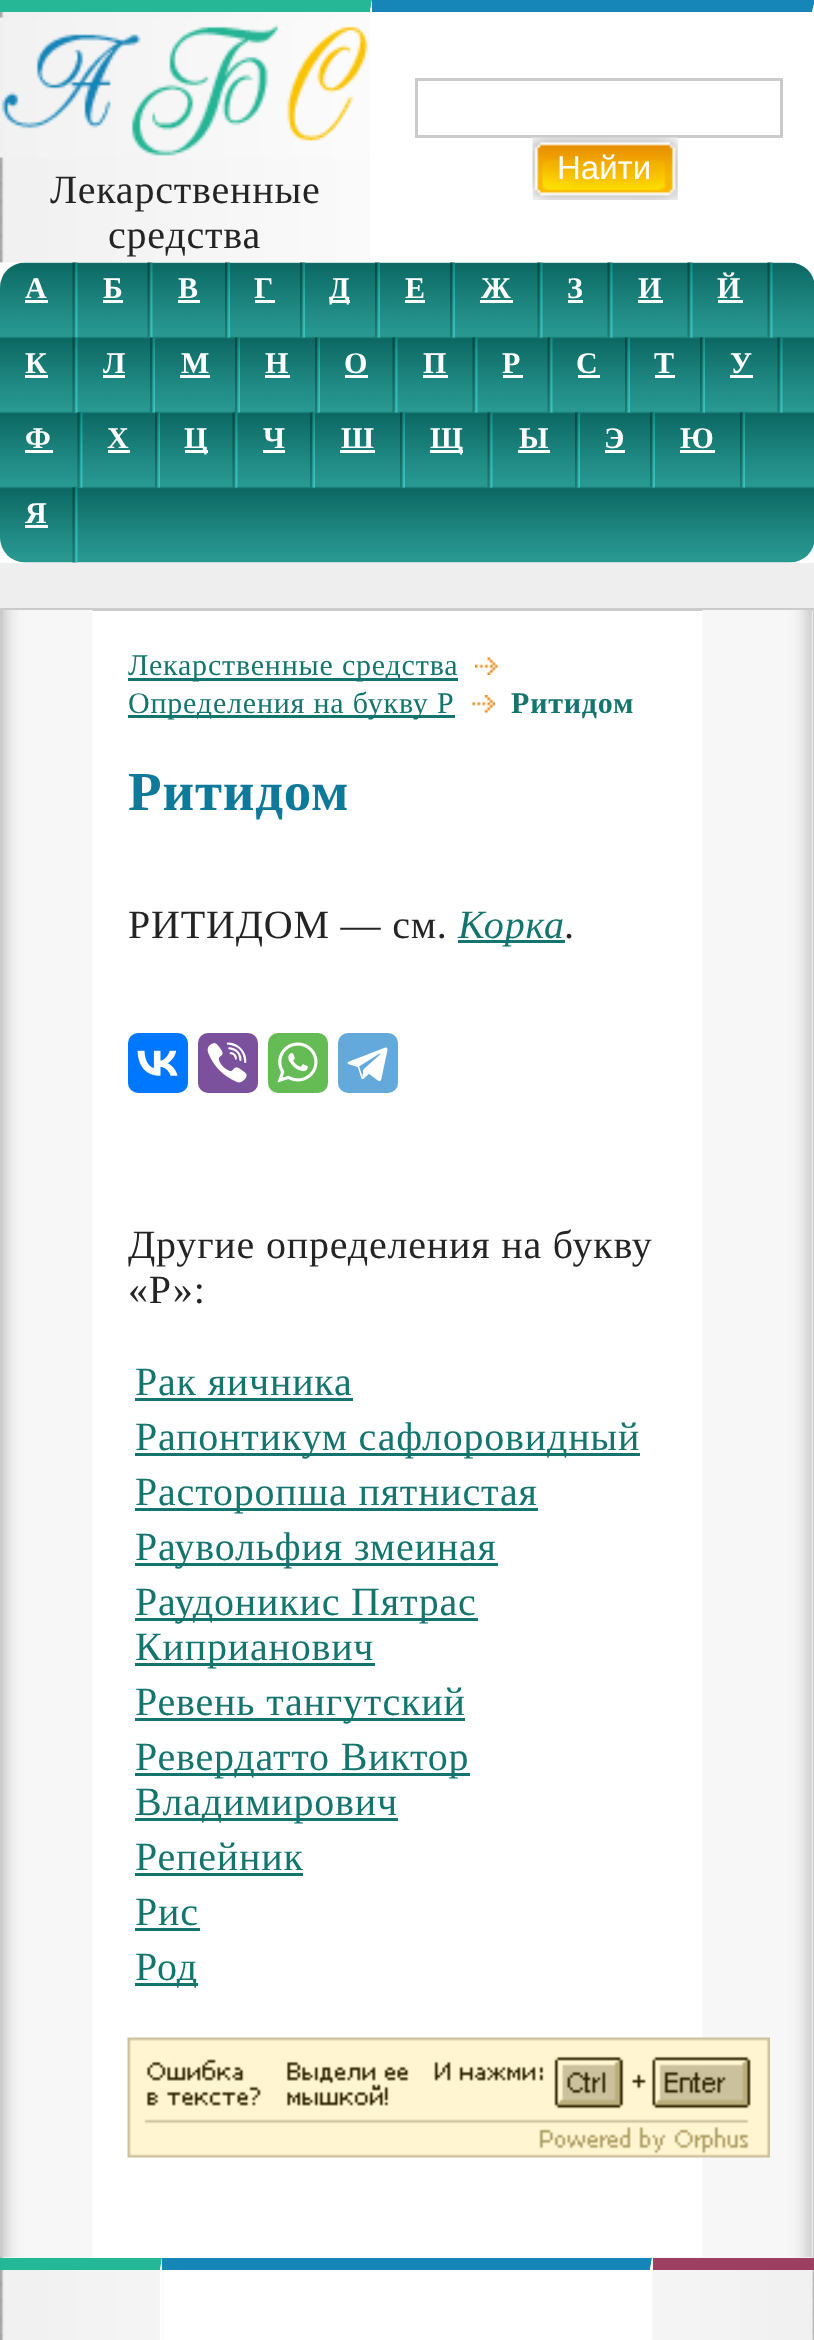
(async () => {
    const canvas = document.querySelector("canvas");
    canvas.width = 814;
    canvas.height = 2340;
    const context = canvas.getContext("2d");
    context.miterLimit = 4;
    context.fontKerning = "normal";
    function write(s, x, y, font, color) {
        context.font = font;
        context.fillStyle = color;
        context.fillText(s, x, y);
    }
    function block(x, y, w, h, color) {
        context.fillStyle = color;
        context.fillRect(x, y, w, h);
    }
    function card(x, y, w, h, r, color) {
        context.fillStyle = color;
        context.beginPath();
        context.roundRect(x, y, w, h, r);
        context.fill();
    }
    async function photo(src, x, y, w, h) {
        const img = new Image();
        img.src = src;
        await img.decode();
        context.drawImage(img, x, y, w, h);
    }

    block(0, 0, 814, 2340, "rgb(255, 255, 255)");
    context.fillStyle = "rgb(22, 133, 183)";
    context.beginPath();
    context.moveTo(372, 0);
    context.lineTo(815, 0);
    context.lineTo(812, 12);
    context.lineTo(372, 12);
    context.closePath();
    context.fill();
    context.fillStyle = "rgb(255, 255, 255)";
    context.beginPath();
    context.moveTo(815, 0);
    context.lineTo(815, 262);
    context.lineTo(812, 262);
    context.lineTo(812, 12);
    context.closePath();
    context.fill();
    context.strokeStyle = "rgb(203, 203, 203)";
    context.lineWidth = 3;
    context.strokeRect(416.5, 79.5, 365, 57);
    block(677, 138, 1, 62, "rgb(239, 239, 239)");
    await photo("media/1.png", 532, 137, 146, 63);
    write("Найти", 557, 179, "33px Liberation Sans", "rgb(255, 255, 255)");
    await photo("media/2.png", 0, 0, 372, 263);
    context.fillStyle = "rgb(38, 183, 151)";
    context.beginPath();
    context.moveTo(0, 0);
    context.lineTo(372, 0);
    context.lineTo(370, 12);
    context.lineTo(0, 12);
    context.closePath();
    context.fill();
    context.fillStyle = "rgb(255, 255, 255)";
    context.beginPath();
    context.moveTo(372, 0);
    context.lineTo(372, 262);
    context.lineTo(370, 262);
    context.lineTo(370, 12);
    context.closePath();
    context.fill();
    await photo("media/3.png", 0, 17, 369, 141);
    context.letterSpacing = "0.8px";
    write("Лекарственные", 50, 203, "40px Liberation Serif", "rgb(36, 36, 36)");
    write("средства", 108, 248, "40px Liberation Serif", "rgb(36, 36, 36)");
    await photo("media/4.png", 0, 262, 814, 301);
    await photo("media/5.png", 72, 262, 6, 76);
    write("А", 25, 298, "bold 30px Liberation Serif", "rgb(255, 255, 255)");
    block(25, 300, 23, 3, "rgb(255, 255, 255)");
    await photo("media/6.png", 147, 262, 6, 76);
    write("Б", 103, 298, "bold 30px Liberation Serif", "rgb(255, 255, 255)");
    block(103, 300, 20, 3, "rgb(255, 255, 255)");
    await photo("media/7.png", 225, 262, 5, 76);
    write("В", 178, 298, "bold 30px Liberation Serif", "rgb(255, 255, 255)");
    block(178, 300, 22, 3, "rgb(255, 255, 255)");
    await photo("media/8.png", 300, 262, 5, 76);
    write("Г", 254, 298, "bold 30px Liberation Serif", "rgb(255, 255, 255)");
    block(255, 300, 20, 3, "rgb(255, 255, 255)");
    await photo("media/9.png", 375, 262, 5, 76);
    block(330, 300, 20, 3, "rgb(255, 255, 255)");
    write("Д", 329, 298, "bold 30px Liberation Serif", "rgb(255, 255, 255)");
    await photo("media/10.png", 450, 262, 5, 76);
    write("Е", 405, 298, "bold 30px Liberation Serif", "rgb(255, 255, 255)");
    block(405, 300, 20, 3, "rgb(255, 255, 255)");
    await photo("media/11.png", 537, 262, 6, 76);
    write("Ж", 481, 298, "bold 30px Liberation Serif", "rgb(255, 255, 255)");
    block(480, 300, 33, 3, "rgb(255, 255, 255)");
    await photo("media/11.png", 607, 262, 6, 76);
    write("З", 567, 298, "bold 30px Liberation Serif", "rgb(255, 255, 255)");
    block(568, 300, 15, 3, "rgb(255, 255, 255)");
    await photo("media/11.png", 687, 262, 6, 76);
    write("И", 638, 298, "bold 30px Liberation Serif", "rgb(255, 255, 255)");
    block(638, 300, 25, 3, "rgb(255, 255, 255)");
    await photo("media/11.png", 767, 262, 6, 76);
    write("Й", 717, 298, "bold 30px Liberation Serif", "rgb(255, 255, 255)");
    block(718, 300, 25, 3, "rgb(255, 255, 255)");
    await photo("media/12.png", 72, 337, 6, 76);
    write("К", 25, 373, "bold 30px Liberation Serif", "rgb(255, 255, 255)");
    block(25, 375, 23, 3, "rgb(255, 255, 255)");
    await photo("media/13.png", 150, 337, 5, 76);
    write("Л", 103, 373, "bold 30px Liberation Serif", "rgb(255, 255, 255)");
    block(103, 375, 22, 3, "rgb(255, 255, 255)");
    await photo("media/14.png", 235, 337, 5, 76);
    write("М", 181, 373, "bold 30px Liberation Serif", "rgb(255, 255, 255)");
    block(180, 375, 30, 3, "rgb(255, 255, 255)");
    await photo("media/14.png", 315, 337, 5, 76);
    write("Н", 265, 373, "bold 30px Liberation Serif", "rgb(255, 255, 255)");
    block(265, 375, 25, 3, "rgb(255, 255, 255)");
    await photo("media/15.png", 392, 337, 6, 76);
    write("О", 344, 373, "bold 30px Liberation Serif", "rgb(255, 255, 255)");
    block(345, 375, 23, 3, "rgb(255, 255, 255)");
    await photo("media/15.png", 472, 337, 6, 76);
    write("П", 423, 373, "bold 30px Liberation Serif", "rgb(255, 255, 255)");
    block(423, 375, 25, 3, "rgb(255, 255, 255)");
    await photo("media/15.png", 547, 337, 6, 76);
    write("Р", 502, 373, "bold 30px Liberation Serif", "rgb(255, 255, 255)");
    block(503, 375, 20, 3, "rgb(255, 255, 255)");
    await photo("media/14.png", 625, 337, 5, 76);
    write("С", 576, 373, "bold 30px Liberation Serif", "rgb(255, 255, 255)");
    block(578, 375, 22, 3, "rgb(255, 255, 255)");
    await photo("media/16.png", 700, 337, 5, 76);
    write("Т", 654, 373, "bold 30px Liberation Serif", "rgb(255, 255, 255)");
    block(655, 375, 20, 3, "rgb(255, 255, 255)");
    await photo("media/15.png", 777, 337, 6, 76);
    write("У", 730, 373, "bold 30px Liberation Serif", "rgb(255, 255, 255)");
    block(730, 375, 23, 3, "rgb(255, 255, 255)");
    await photo("media/17.png", 77, 412, 6, 76);
    write("Ф", 25, 448, "bold 30px Liberation Serif", "rgb(255, 255, 255)");
    block(25, 450, 28, 3, "rgb(255, 255, 255)");
    await photo("media/14.png", 155, 412, 5, 76);
    write("Х", 107, 448, "bold 30px Liberation Serif", "rgb(255, 255, 255)");
    block(108, 450, 22, 3, "rgb(255, 255, 255)");
    await photo("media/18.png", 232, 412, 6, 76);
    block(185, 450, 23, 3, "rgb(255, 255, 255)");
    write("Ц", 184, 448, "bold 30px Liberation Serif", "rgb(255, 255, 255)");
    await photo("media/14.png", 310, 412, 5, 76);
    write("Ч", 263, 448, "bold 30px Liberation Serif", "rgb(255, 255, 255)");
    block(263, 450, 22, 3, "rgb(255, 255, 255)");
    await photo("media/14.png", 400, 412, 5, 76);
    write("Ш", 341, 448, "bold 30px Liberation Serif", "rgb(255, 255, 255)");
    block(340, 450, 35, 3, "rgb(255, 255, 255)");
    await photo("media/15.png", 487, 412, 6, 76);
    block(430, 450, 33, 3, "rgb(255, 255, 255)");
    write("Щ", 430, 448, "bold 30px Liberation Serif", "rgb(255, 255, 255)");
    await photo("media/16.png", 575, 412, 5, 76);
    write("Ы", 519, 448, "bold 30px Liberation Serif", "rgb(255, 255, 255)");
    block(518, 450, 32, 3, "rgb(255, 255, 255)");
    await photo("media/14.png", 650, 412, 5, 76);
    write("Э", 604, 448, "bold 30px Liberation Serif", "rgb(255, 255, 255)");
    block(605, 450, 20, 3, "rgb(255, 255, 255)");
    await photo("media/16.png", 740, 412, 5, 76);
    write("Ю", 680, 448, "bold 30px Liberation Serif", "rgb(255, 255, 255)");
    block(680, 450, 35, 3, "rgb(255, 255, 255)");
    await photo("media/19.png", 72, 487, 6, 76);
    write("Я", 25, 523, "bold 30px Liberation Serif", "rgb(255, 255, 255)");
    block(25, 525, 23, 3, "rgb(255, 255, 255)");
    block(0, 563, 814, 45, "rgb(238, 238, 238)");
    block(0, 608, 814, 3, "rgb(203, 203, 203)");
    await photo("media/20.png", 3, 610, 90, 1648);
    await photo("media/21.png", 702, 610, 111, 1648);
    block(813, 610, 1, 1648, "rgb(203, 203, 203)");
    block(0, 610, 3, 1648, "rgb(203, 203, 203)");
    block(128, 678, 330, 3, "rgb(20, 116, 110)");
    write("Лекарственные средства", 128, 675, "30px Liberation Serif", "rgb(20, 116, 110)");
    await photo("media/22.png", 475, 657, 23, 18);
    block(128, 715, 327, 3, "rgb(20, 116, 110)");
    write("Определения на букву Р", 128, 713, "30px Liberation Serif", "rgb(20, 116, 110)");
    await photo("media/23.png", 472, 695, 23, 18);
    write("Ритидом", 511, 713, "bold 30px Liberation Serif", "rgb(20, 116, 110)");
    write("Ритидом", 128, 810, "bold 55px Liberation Serif", "rgb(15, 121, 154)");
    write("РИТИДОМ — см.", 128, 938, "40px Liberation Serif", "rgb(36, 36, 36)");
    block(458, 940, 107, 3, "rgb(20, 116, 110)");
    write("Корка", 458, 938, "italic 40px Liberation Serif", "rgb(20, 116, 110)");
    write(".", 565, 938, "italic 40px Liberation Serif", "rgb(36, 36, 36)");
    card(128, 1033, 60, 60, 10, "rgb(0, 119, 255)");
    await photo("media/24.png", 137, 1050, 41, 26);
    card(198, 1033, 60, 60, 10, "rgb(123, 81, 157)");
    await photo("media/25.png", 207, 1042, 40, 41);
    card(268, 1033, 60, 60, 10, "rgb(101, 188, 84)");
    await photo("media/26.png", 277, 1042, 41, 41);
    card(338, 1033, 60, 60, 10, "rgb(100, 169, 220)");
    await photo("media/27.png", 347, 1047, 41, 34);
    write("Другие определения на букву", 128, 1258, "40px Liberation Serif", "rgb(36, 36, 36)");
    write("«Р»:", 128, 1303, "40px Liberation Serif", "rgb(36, 36, 36)");
    write("Рак яичника", 135, 1395, "40px Liberation Serif", "rgb(20, 116, 110)");
    block(135, 1398, 218, 3, "rgb(20, 116, 110)");
    block(135, 1453, 505, 3, "rgb(20, 116, 110)");
    write("Рапонтикум сафлоровидный", 135, 1450, "40px Liberation Serif", "rgb(20, 116, 110)");
    block(135, 1508, 403, 3, "rgb(20, 116, 110)");
    write("Расторопша пятнистая", 135, 1505, "40px Liberation Serif", "rgb(20, 116, 110)");
    block(135, 1563, 363, 3, "rgb(20, 116, 110)");
    write("Раувольфия змеиная", 135, 1560, "40px Liberation Serif", "rgb(20, 116, 110)");
    block(135, 1618, 343, 3, "rgb(20, 116, 110)");
    write("Раудоникис Пятрас", 135, 1615, "40px Liberation Serif", "rgb(20, 116, 110)");
    block(135, 1663, 240, 3, "rgb(20, 116, 110)");
    write("Киприанович", 135, 1660, "40px Liberation Serif", "rgb(20, 116, 110)");
    block(135, 1718, 330, 3, "rgb(20, 116, 110)");
    write("Ревень тангутский", 135, 1715, "40px Liberation Serif", "rgb(20, 116, 110)");
    block(135, 1773, 335, 3, "rgb(20, 116, 110)");
    write("Ревердатто Виктор", 135, 1770, "40px Liberation Serif", "rgb(20, 116, 110)");
    block(135, 1818, 263, 3, "rgb(20, 116, 110)");
    write("Владимирович", 135, 1815, "40px Liberation Serif", "rgb(20, 116, 110)");
    write("Репейник", 135, 1870, "40px Liberation Serif", "rgb(20, 116, 110)");
    block(135, 1873, 168, 3, "rgb(20, 116, 110)");
    write("Рис", 135, 1925, "40px Liberation Serif", "rgb(20, 116, 110)");
    block(135, 1928, 65, 3, "rgb(20, 116, 110)");
    block(135, 1983, 63, 3, "rgb(20, 116, 110)");
    write("Род", 135, 1980, "40px Liberation Serif", "rgb(20, 116, 110)");
    await photo("media/28.png", 127, 2037, 643, 121);
    await photo("media/29.png", 0, 2257, 163, 83);
    context.fillStyle = "rgb(38, 183, 151)";
    context.beginPath();
    context.moveTo(0, 2258);
    context.lineTo(162, 2258);
    context.lineTo(160, 2270);
    context.lineTo(0, 2270);
    context.closePath();
    context.fill();
    context.fillStyle = "rgb(255, 255, 255)";
    context.beginPath();
    context.moveTo(162, 2258);
    context.lineTo(162, 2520);
    context.lineTo(160, 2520);
    context.lineTo(160, 2270);
    context.closePath();
    context.fill();
    context.fillStyle = "rgb(22, 133, 183)";
    context.beginPath();
    context.moveTo(162, 2258);
    context.lineTo(652, 2258);
    context.lineTo(650, 2270);
    context.lineTo(162, 2270);
    context.closePath();
    context.fill();
    context.fillStyle = "rgb(255, 255, 255)";
    context.beginPath();
    context.moveTo(652, 2258);
    context.lineTo(652, 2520);
    context.lineTo(650, 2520);
    context.lineTo(650, 2270);
    context.closePath();
    context.fill();
    await photo("media/30.png", 652, 2257, 162, 83);
    block(653, 2258, 161, 12, "rgb(157, 63, 97)");
})();
